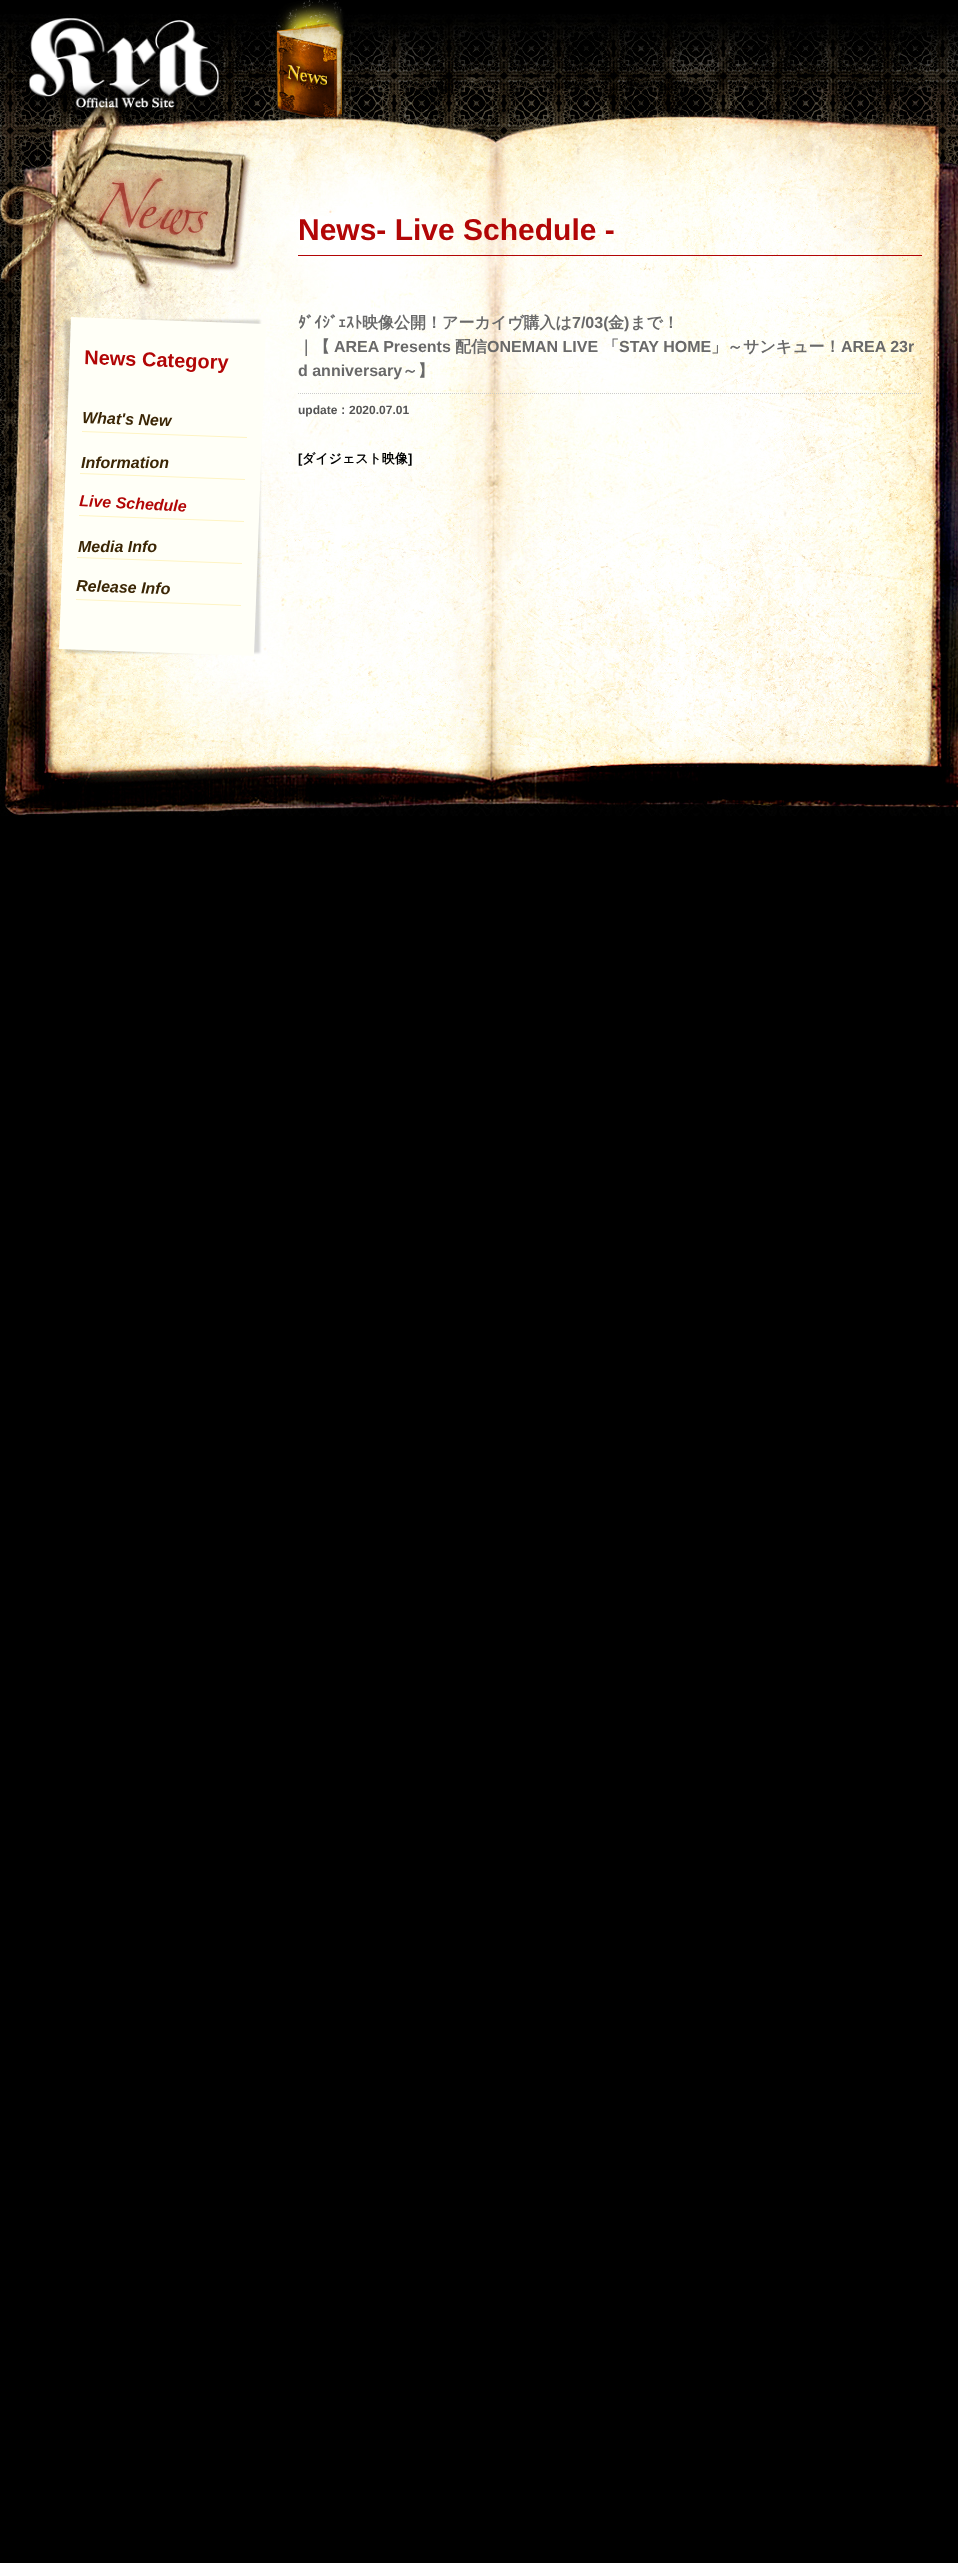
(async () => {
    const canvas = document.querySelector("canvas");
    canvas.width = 958;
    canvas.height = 2563;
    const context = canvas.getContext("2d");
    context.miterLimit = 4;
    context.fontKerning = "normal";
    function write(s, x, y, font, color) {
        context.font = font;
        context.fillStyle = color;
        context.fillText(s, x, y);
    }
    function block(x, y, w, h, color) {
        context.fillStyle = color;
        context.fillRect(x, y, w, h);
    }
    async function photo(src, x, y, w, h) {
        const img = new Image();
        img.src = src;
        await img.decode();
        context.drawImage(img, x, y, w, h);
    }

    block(0, 0, 958, 2563, "rgb(0, 0, 0)");
    await photo("media/1.png", 0, 14, 958, 802);
    await photo("media/2.png", 14, 18, 206, 107);
    await photo("media/3.png", 275, 0, 70, 117);
    await photo("media/4.png", 75, 170, 155, 70);
    context.fillStyle = "rgba(0, 0, 0, 0.15)";
    context.filter = "blur(1px)";
    context.beginPath();
    context.rect(65, 320, 195, 333);
    context.fill();
    context.filter = "none";
    context.fillStyle = "rgb(255, 255, 247)";
    context.beginPath();
    context.moveTo(71, 317);
    context.lineTo(266, 324);
    context.lineTo(254, 656);
    context.lineTo(59, 649);
    context.closePath();
    context.fill();
    context.font = "bold 20px Liberation Sans";
    context.fillStyle = "rgb(178, 6, 6)";
    context.save();
    context.translate(84, 364);
    context.rotate(2 * Math.PI / 180);
    context.fillText("News Category", 0, 0);
    context.restore();
    context.fillStyle = "rgb(254, 244, 195)";
    context.beginPath();
    context.moveTo(82, 431);
    context.lineTo(247, 437);
    context.lineTo(247, 438);
    context.lineTo(82, 432);
    context.closePath();
    context.fill();
    context.font = "italic bold 16px Liberation Sans";
    context.fillStyle = "rgb(59, 38, 5)";
    context.save();
    context.translate(82, 423);
    context.rotate(2 * Math.PI / 180);
    context.fillText("What's New", 0, 0);
    context.restore();
    context.fillStyle = "rgb(254, 244, 195)";
    context.beginPath();
    context.moveTo(80, 473);
    context.lineTo(245, 479);
    context.lineTo(245, 480);
    context.lineTo(80, 474);
    context.closePath();
    context.fill();
    write("Information", 81, 468, "italic bold 16px Liberation Sans", "rgb(59, 38, 5)");
    context.fillStyle = "rgb(254, 244, 195)";
    context.beginPath();
    context.moveTo(79, 515);
    context.lineTo(244, 521);
    context.lineTo(244, 522);
    context.lineTo(79, 516);
    context.closePath();
    context.fill();
    context.fillStyle = "rgb(178, 6, 6)";
    context.save();
    context.translate(79, 506);
    context.rotate(3 * Math.PI / 180);
    context.fillText("Live Schedule", 0, 0);
    context.restore();
    context.fillStyle = "rgb(254, 244, 195)";
    context.beginPath();
    context.moveTo(77, 557);
    context.lineTo(242, 563);
    context.lineTo(242, 564);
    context.lineTo(77, 558);
    context.closePath();
    context.fill();
    write("Media Info", 78, 552, "italic bold 16px Liberation Sans", "rgb(59, 38, 5)");
    context.fillStyle = "rgb(254, 244, 195)";
    context.beginPath();
    context.moveTo(76, 599);
    context.lineTo(241, 605);
    context.lineTo(241, 606);
    context.lineTo(76, 600);
    context.closePath();
    context.fill();
    context.fillStyle = "rgb(59, 38, 5)";
    context.save();
    context.translate(76, 591);
    context.rotate(2 * Math.PI / 180);
    context.fillText("Release Info", 0, 0);
    context.restore();
    block(298, 255, 624, 1, "rgb(178, 6, 6)");
    write("News- Live Schedule -", 298, 240, "bold 30px Liberation Sans", "rgb(178, 6, 6)");
    write("ﾀﾞｲｼﾞｪｽﾄ", 298, 328, "bold 16px IPAPGothic", "rgb(105, 105, 105)");
    write("映像公開！アーカイヴ購入は", 362, 328, "bold 16px WenQuanYi Zen Hei", "rgb(105, 105, 105)");
    write("7/03(", 572, 328, "bold 16px Liberation Sans", "rgb(105, 105, 105)");
    write("金", 608, 328, "bold 16px WenQuanYi Zen Hei", "rgb(105, 105, 105)");
    write(")", 624, 328, "bold 16px Liberation Sans", "rgb(105, 105, 105)");
    write("まで！", 630, 328, "bold 16px WenQuanYi Zen Hei", "rgb(105, 105, 105)");
    write("｜【", 298, 352, "bold 16px WenQuanYi Zen Hei", "rgb(105, 105, 105)");
    write("AREA Presents", 334, 352, "bold 16px Liberation Sans", "rgb(105, 105, 105)");
    write("配信", 455, 352, "bold 16px WenQuanYi Zen Hei", "rgb(105, 105, 105)");
    write("ONEMAN LIVE", 487, 352, "bold 16px Liberation Sans", "rgb(105, 105, 105)");
    write("「", 603, 352, "bold 16px WenQuanYi Zen Hei", "rgb(105, 105, 105)");
    write("STAY HOME", 619, 352, "bold 16px Liberation Sans", "rgb(105, 105, 105)");
    write("」～サンキュー！", 711, 352, "bold 16px WenQuanYi Zen Hei", "rgb(105, 105, 105)");
    write("AREA 23r", 841, 352, "bold 16px Liberation Sans", "rgb(105, 105, 105)");
    write("d anniversary", 298, 376, "bold 16px Liberation Sans", "rgb(105, 105, 105)");
    write("～】", 402, 376, "bold 16px WenQuanYi Zen Hei", "rgb(105, 105, 105)");
    context.beginPath();
    context.moveTo(298, 393.5);
    context.lineTo(922, 393.5);
    context.strokeStyle = "rgb(204, 204, 204)";
    context.setLineDash([1, 1]);
    context.stroke();
    write("update", 298, 414, "bold 12px Liberation Sans", "rgb(84, 84, 84)");
    write("：", 337, 414, "bold 12px WenQuanYi Zen Hei", "rgb(84, 84, 84)");
    write("2020.07.01", 349, 414, "bold 12px Liberation Sans", "rgb(84, 84, 84)");
    write("[", 298, 463, "bold 13px Liberation Sans", "rgb(0, 0, 0)");
    write("ダイジェスト映像", 302, 463, "bold 13px WenQuanYi Zen Hei", "rgb(0, 0, 0)");
    write("]", 408, 463, "bold 13px Liberation Sans", "rgb(0, 0, 0)");
})();
